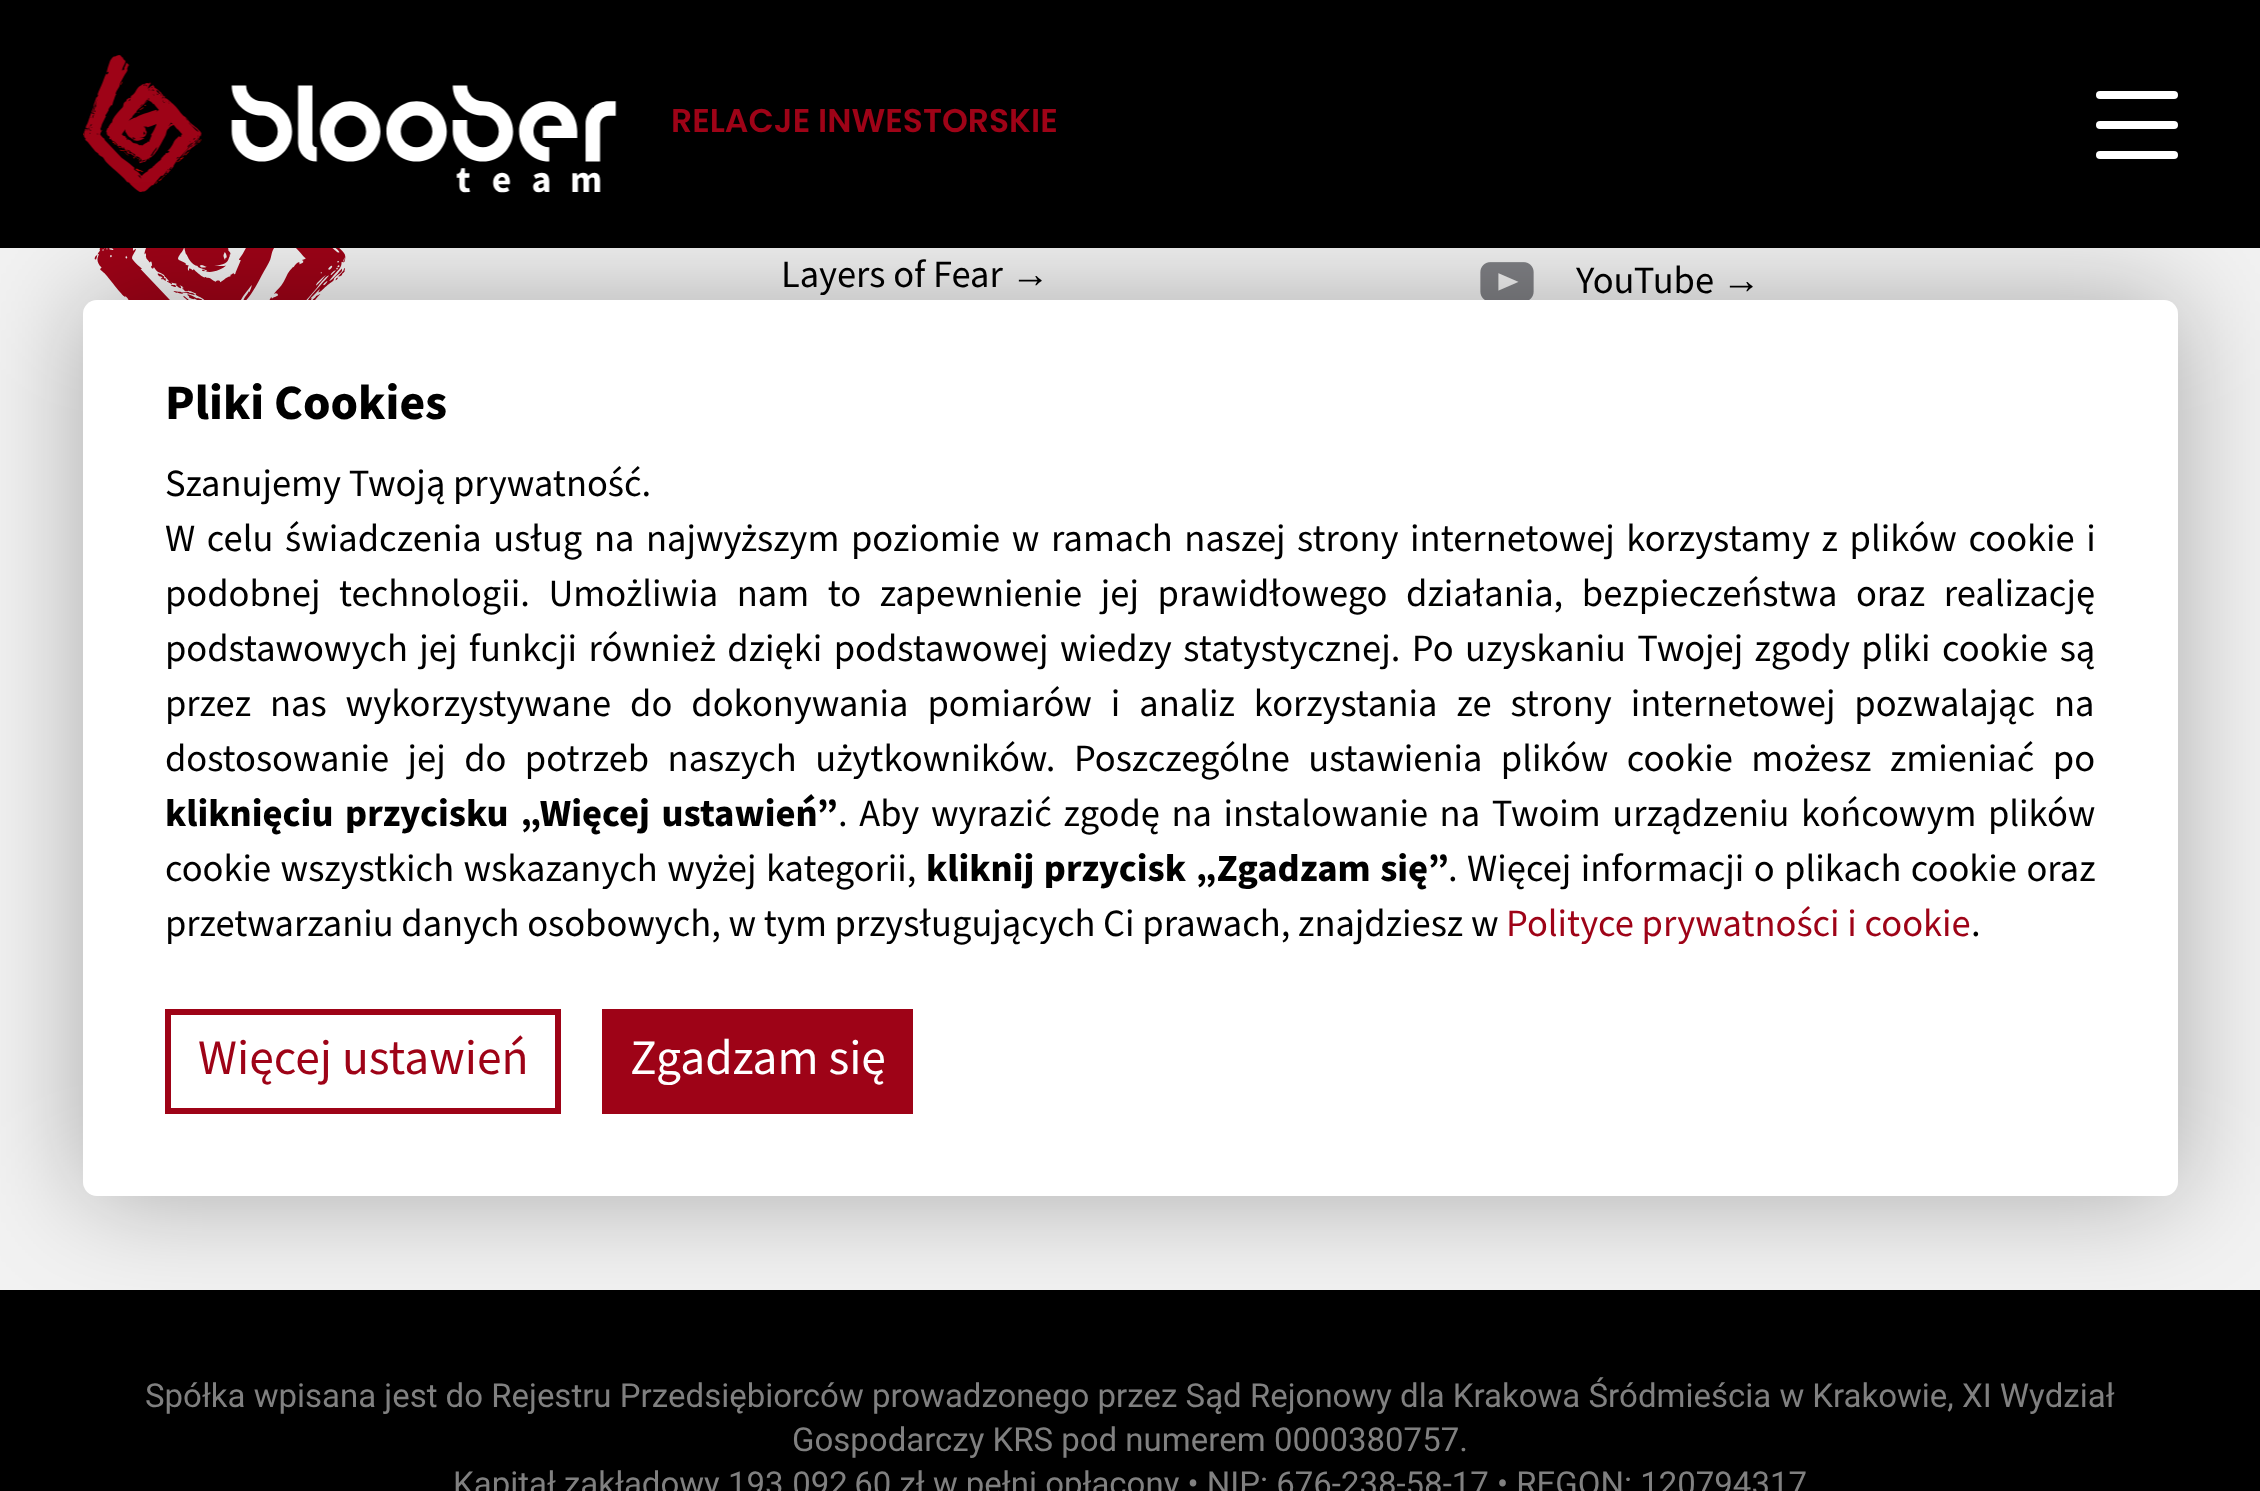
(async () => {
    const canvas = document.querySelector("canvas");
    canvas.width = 2260;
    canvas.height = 1491;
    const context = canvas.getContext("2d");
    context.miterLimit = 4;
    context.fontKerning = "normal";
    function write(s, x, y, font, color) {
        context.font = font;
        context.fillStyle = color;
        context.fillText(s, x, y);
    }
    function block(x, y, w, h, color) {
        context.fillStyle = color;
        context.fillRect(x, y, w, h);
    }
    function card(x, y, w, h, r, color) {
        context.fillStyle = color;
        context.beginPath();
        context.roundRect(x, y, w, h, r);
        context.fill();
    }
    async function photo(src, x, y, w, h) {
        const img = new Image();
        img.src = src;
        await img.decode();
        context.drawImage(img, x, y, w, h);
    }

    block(0, 0, 2260, 1491, "rgb(242, 242, 242)");
    block(0, 0, 2260, 248, "rgb(0, 0, 0)");
    await photo("media/1.png", 83, 55, 534, 138);
    write("RELACJE INWESTORSKIE", 671, 132, "600 33px Poppins", "rgb(158, 3, 23)");
    card(2096, 91, 82, 8, 4, "rgb(255, 255, 255)");
    card(2096, 121, 82, 8, 4, "rgb(255, 255, 255)");
    card(2096, 151, 82, 8, 4, "rgb(255, 255, 255)");
    await photo("media/2.png", 94, 248, 252, 52);
    write("Layers of Fear", 781, 287, "38.5px Source Sans Pro", "rgb(0, 0, 0)");
    write("→", 1011, 287, "38.5px Liberation Sans", "rgb(0, 0, 0)");
    await photo("media/3.png", 1480, 262, 54, 38);
    write("YouTube", 1576, 293, "38.5px Source Sans Pro", "rgb(0, 0, 0)");
    write("→", 1722, 293, "38.5px Liberation Sans", "rgb(0, 0, 0)");
    block(0, 1290, 2260, 201, "rgb(0, 0, 0)");
    write("Spółka wpisana jest do Rejestru Przedsiębiorców prowadzonego przez Sąd Rejonowy dla Krakowa Śródmieścia w Krakowie, XI Wydział", 145, 1407, "33px Roboto", "rgb(128, 128, 128)");
    write("Gospodarczy KRS pod numerem 0000380757.", 792, 1451, "33px Roboto", "rgb(128, 128, 128)");
    write("Kapitał zakładowy 193.092,60 zł w pełni opłacony • NIP: 676-238-58-17 • REGON: 120794317", 453, 1495, "33px Roboto", "rgb(128, 128, 128)");
    context.fillStyle = "rgba(0, 0, 0, 0.3)";
    context.filter = "blur(55px)";
    context.beginPath();
    context.roundRect(83, 300, 2095, 896, 14);
    context.fill();
    context.filter = "none";
    card(83, 300, 2095, 896, 14, "rgb(255, 255, 255)");
    write("Pliki Cookies", 165, 419, "bold 49.5px Source Sans Pro", "rgb(0, 0, 0)");
    write("Szanujemy Twoją prywatność.", 165, 496, "38.5px Source Sans Pro", "rgb(0, 0, 0)");
    context.wordSpacing = "3.9px";
    write("W celu świadczenia usług na najwyższym poziomie w ramach naszej strony internetowej korzystamy z plików cookie i", 165, 551, "38.5px Source Sans Pro", "rgb(0, 0, 0)");
    context.wordSpacing = "10.9px";
    write("podobnej technologii. Umożliwia nam to zapewnienie jej prawidłowego działania, bezpieczeństwa oraz realizację", 165, 606, "38.5px Source Sans Pro", "rgb(0, 0, 0)");
    context.wordSpacing = "3.75px";
    write("podstawowych jej funkcji również dzięki podstawowej wiedzy statystycznej. Po uzyskaniu Twojej zgody pliki cookie są", 165, 661, "38.5px Source Sans Pro", "rgb(0, 0, 0)");
    context.wordSpacing = "11.25px";
    write("przez nas wykorzystywane do dokonywania pomiarów i analiz korzystania ze strony internetowej pozwalając na", 165, 716, "38.5px Source Sans Pro", "rgb(0, 0, 0)");
    context.wordSpacing = "10.75px";
    write("dostosowanie jej do potrzeb naszych użytkowników. Poszczególne ustawienia plików cookie możesz zmieniać po", 165, 771, "38.5px Source Sans Pro", "rgb(0, 0, 0)");
    context.wordSpacing = "3.9px";
    write("kliknięciu przycisku „Więcej ustawień”", 165, 826, "bold 38.5px Source Sans Pro", "rgb(0, 0, 0)");
    write(". Aby wyrazić zgodę na instalowanie na Twoim urządzeniu końcowym plików", 838, 826, "38.5px Source Sans Pro", "rgb(0, 0, 0)");
    context.wordSpacing = "1.75px";
    write("cookie wszystkich wskazanych wyżej kategorii,", 165, 881, "38.5px Source Sans Pro", "rgb(0, 0, 0)");
    write("kliknij przycisk „Zgadzam się”", 926, 881, "bold 38.5px Source Sans Pro", "rgb(0, 0, 0)");
    write(". Więcej informacji o plikach cookie oraz", 1448, 881, "38.5px Source Sans Pro", "rgb(0, 0, 0)");
    context.wordSpacing = "0px";
    write("przetwarzaniu danych osobowych, w tym przysługujących Ci prawach, znajdziesz w", 165, 936, "38.5px Source Sans Pro", "rgb(0, 0, 0)");
    write("Polityce prywatności i cookie", 1506, 936, "38.5px Source Sans Pro", "rgb(158, 3, 23)");
    write(".", 1971, 936, "38.5px Source Sans Pro", "rgb(0, 0, 0)");
    context.strokeStyle = "rgb(158, 3, 23)";
    context.lineWidth = 6;
    context.strokeRect(168, 1012, 390, 99);
    write("Więcej ustawień", 198, 1074, "49.5px Source Sans Pro", "rgb(158, 3, 23)");
    block(602, 1009, 311, 105, "rgb(158, 3, 23)");
    write("Zgadzam się", 630, 1074, "49.5px Source Sans Pro", "rgb(255, 255, 255)");
})();
